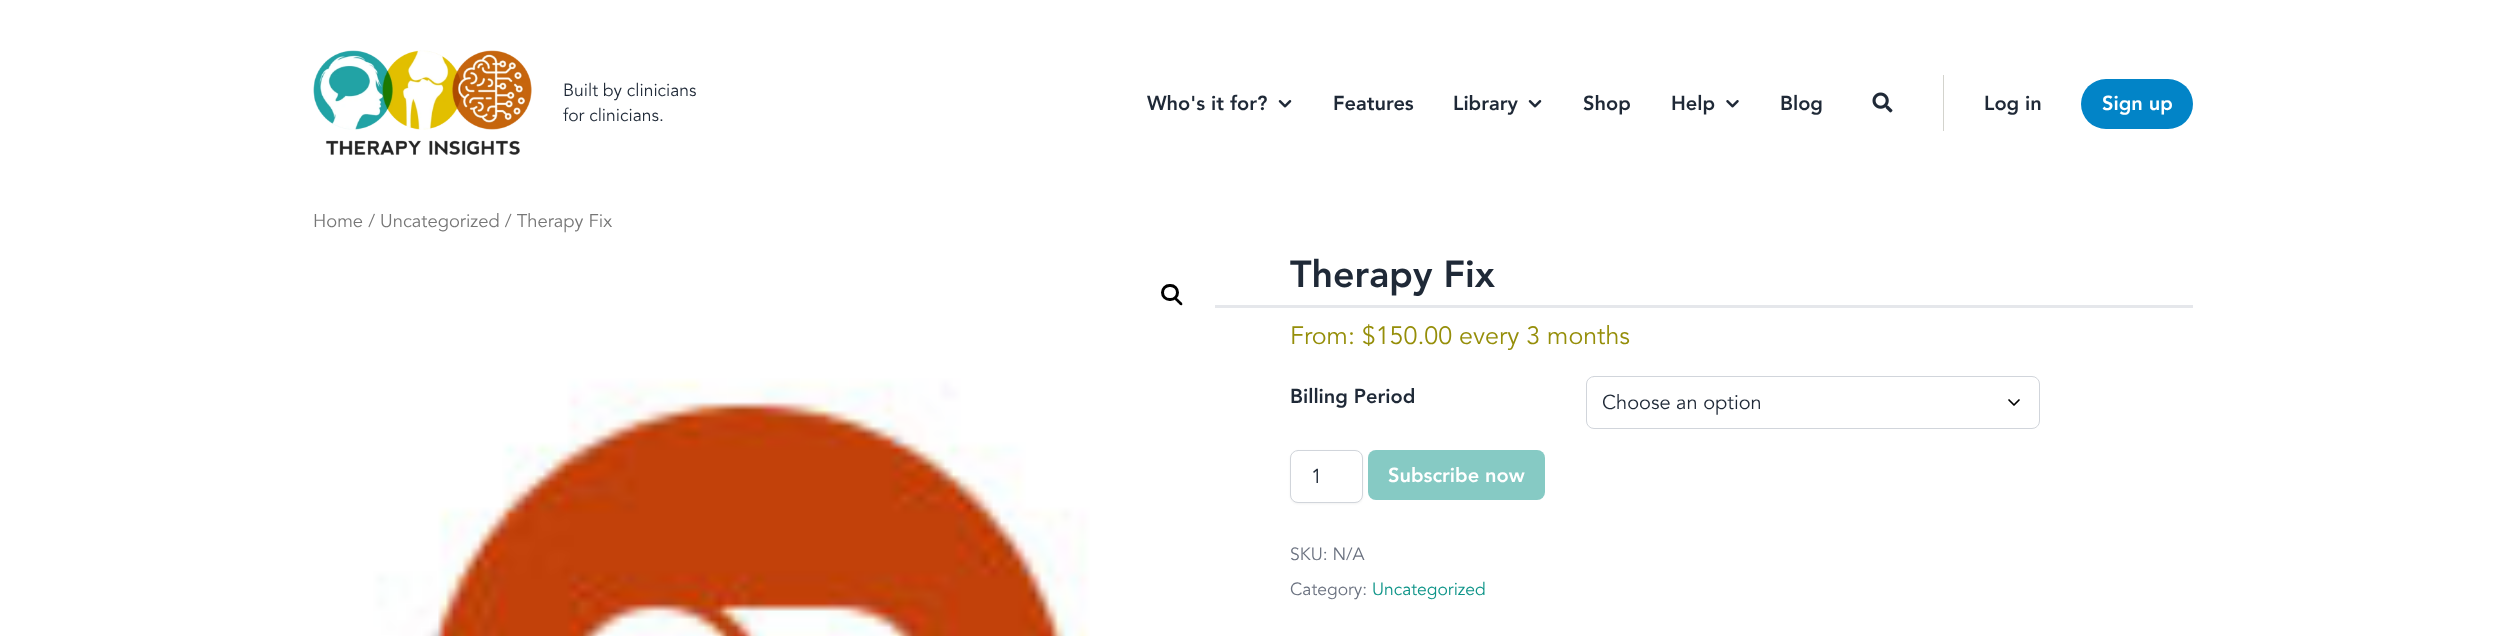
(async () => {
    const canvas = document.querySelector("canvas");
    canvas.width = 2504;
    canvas.height = 636;
    const context = canvas.getContext("2d");
    context.miterLimit = 4;
    context.fontKerning = "normal";
    function write(s, x, y, font, color) {
        context.font = font;
        context.fillStyle = color;
        context.fillText(s, x, y);
    }
    function block(x, y, w, h, color) {
        context.fillStyle = color;
        context.fillRect(x, y, w, h);
    }
    function card(x, y, w, h, r, color) {
        context.fillStyle = color;
        context.beginPath();
        context.roundRect(x, y, w, h, r);
        context.fill();
    }
    async function photo(src, x, y, w, h) {
        const img = new Image();
        img.src = src;
        await img.decode();
        context.drawImage(img, x, y, w, h);
    }

    block(0, 0, 2504, 636, "rgb(255, 255, 255)");
    await photo("media/1.png", 313, 50, 219, 105);
    write("Built by clinicians", 563, 96, "17.5px Avenir", "rgb(31, 41, 55)");
    write("for clinicians.", 563, 121, "17.5px Avenir", "rgb(31, 41, 55)");
    write("Who's it for?", 1147, 110, "900 20px Avenir", "rgb(31, 41, 55)");
    await photo("media/2.png", 1278, 100, 14, 8);
    write("Features", 1333, 110, "900 20px Avenir", "rgb(31, 41, 55)");
    write("Library", 1453, 110, "900 20px Avenir", "rgb(31, 41, 55)");
    await photo("media/2.png", 1528, 100, 14, 8);
    write("Shop", 1583, 110, "900 20px Avenir", "rgb(31, 41, 55)");
    write("Help", 1671, 110, "900 20px Avenir", "rgb(31, 41, 55)");
    await photo("media/3.png", 1726, 100, 13, 8);
    write("Blog", 1780, 110, "900 20px Avenir", "rgb(31, 41, 55)");
    await photo("media/4.png", 1872, 92, 21, 21);
    block(1943, 75, 1, 56, "rgb(211, 211, 205)");
    write("Log in", 1984, 110, "900 20px Avenir", "rgb(31, 41, 55)");
    card(2081, 79, 112, 50, 25, "rgb(2, 132, 199)");
    write("Sign up", 2102, 110, "900 20px Avenir", "rgb(255, 255, 255)");
    write("Home / Uncategorized / Therapy Fix", 313, 227, "18.4px Avenir", "rgb(118, 118, 118)");
    context.beginPath();
    context.roundRect(1162.5, 285.5, 15, 14, 7);
    context.strokeStyle = "rgb(0, 0, 0)";
    context.lineWidth = 3;
    context.stroke();
    await photo("media/5.png", 313, 305, 902, 331);
    context.fillStyle = "rgb(0, 0, 0)";
    context.beginPath();
    context.moveTo(1175, 298);
    context.bezierCurveTo(1176.5, 296.5, 1179, 300, 1179.5, 300.5);
    context.bezierCurveTo(1180.5, 301.5, 1183.5, 303.5, 1182, 305);
    context.bezierCurveTo(1180.5, 306.5, 1178.5, 303, 1177.5, 302.5);
    context.bezierCurveTo(1177, 301.5, 1173.5, 299.5, 1175, 298);
    context.closePath();
    context.fill();
    write("Therapy Fix", 1290, 287, "900 37.5px Avenir", "rgb(31, 41, 55)");
    write("From: $150.00 every 3 months", 1290, 344, "25px Avenir", "rgb(149, 142, 9)");
    write("Billing Period", 1290, 403, "900 20px Avenir", "rgb(31, 41, 55)");
    context.beginPath();
    context.moveTo(2009, 400);
    context.lineTo(2014, 405);
    context.lineTo(2019, 400);
    context.lineWidth = 1.7;
    context.lineCap = "round";
    context.lineJoin = "round";
    context.stroke();
    context.beginPath();
    context.roundRect(1586.5, 376.5, 453, 52, 7.5);
    context.strokeStyle = "rgb(209, 213, 219)";
    context.lineWidth = 1;
    context.lineJoin = "miter";
    context.stroke();
    write("Choose an option", 1602, 409, "20px Avenir", "rgb(31, 41, 55)");
    context.fillStyle = "rgba(0, 0, 0, 0.05)";
    context.filter = "blur(1px)";
    context.beginPath();
    context.roundRect(1290, 451, 73, 53, 8);
    context.fill();
    context.filter = "none";
    context.fillStyle = "rgb(255, 255, 255)";
    context.beginPath();
    context.roundRect(1290.5, 450.5, 72, 52, 7.5);
    context.fill();
    context.stroke();
    write("1", 1311, 483, "20px Avenir", "rgb(31, 41, 55)");
    card(1368, 450, 177, 50, 8, "rgb(134, 202, 196)");
    write("Subscribe now", 1388, 482, "900 20px Avenir", "rgb(255, 255, 255)");
    write("SKU: N/A", 1290, 560, "17.5px Avenir", "rgb(107, 114, 128)");
    write("Category:", 1290, 595, "17.5px Avenir", "rgb(107, 114, 128)");
    write("Uncategorized", 1372, 595, "17.5px Avenir", "rgb(13, 148, 136)");
    block(1215, 305, 978, 3, "rgb(229, 231, 235)");
})();
